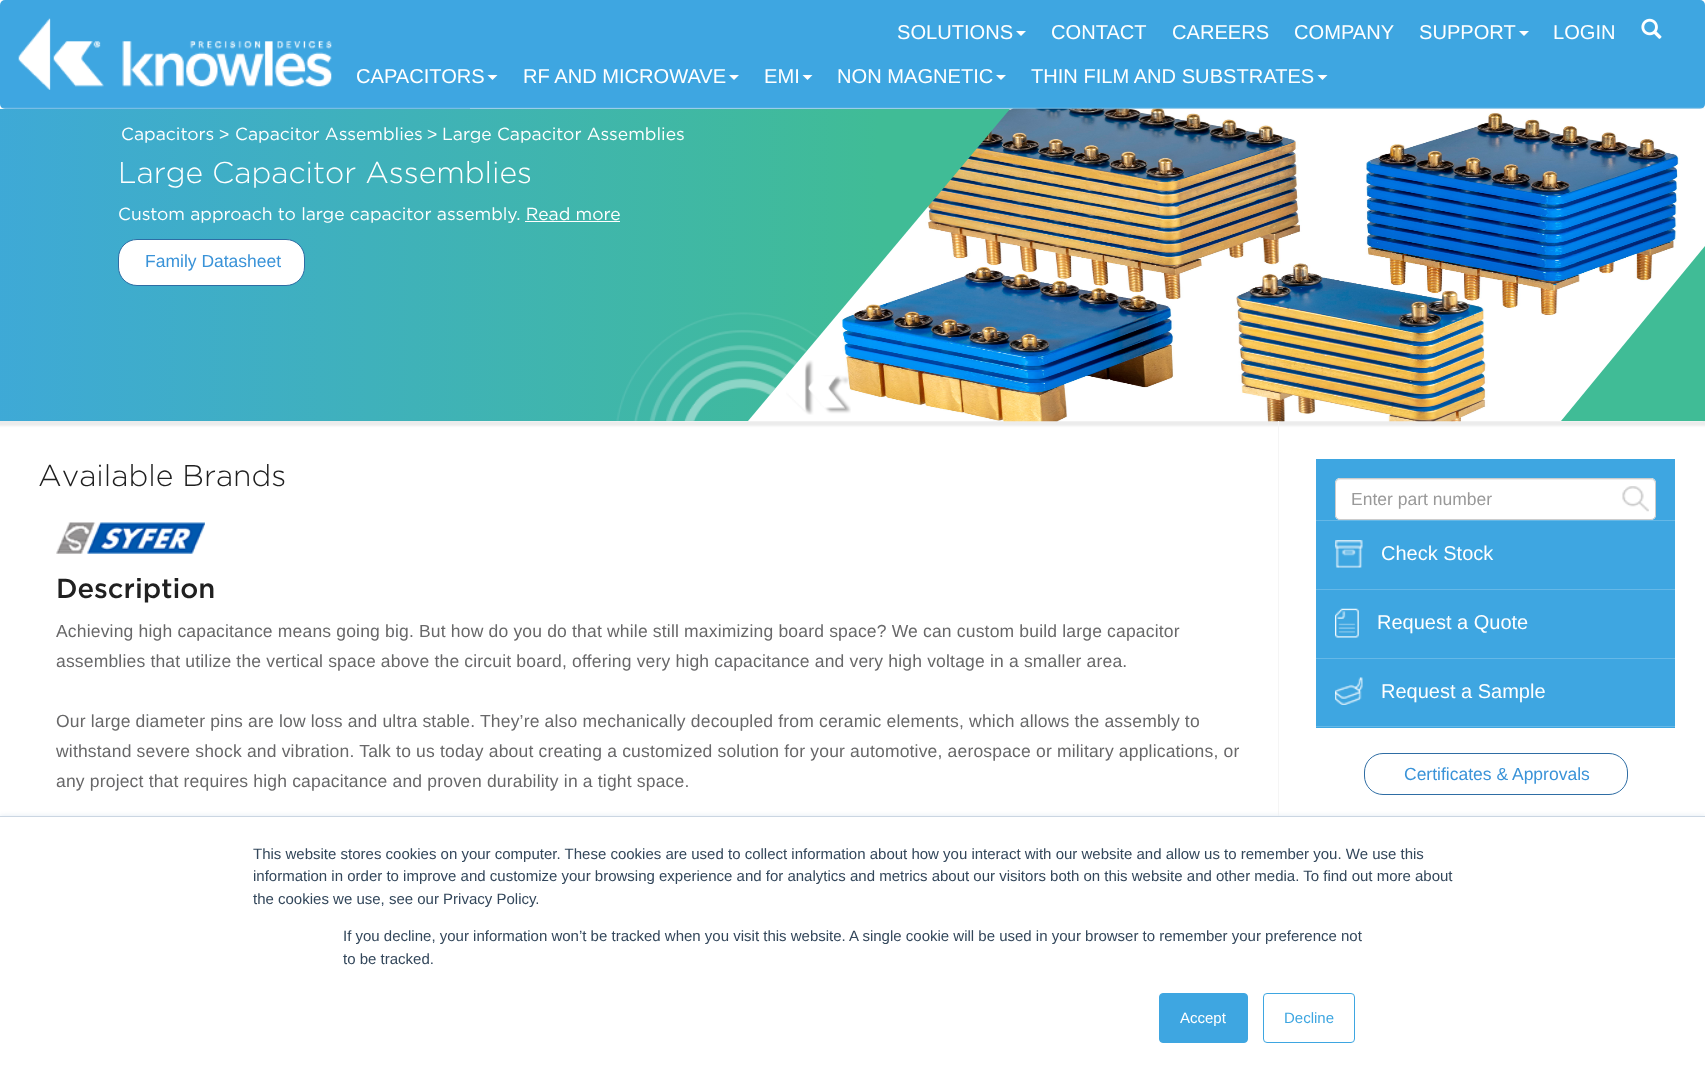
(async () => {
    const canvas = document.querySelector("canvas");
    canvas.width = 1705;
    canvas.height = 1074;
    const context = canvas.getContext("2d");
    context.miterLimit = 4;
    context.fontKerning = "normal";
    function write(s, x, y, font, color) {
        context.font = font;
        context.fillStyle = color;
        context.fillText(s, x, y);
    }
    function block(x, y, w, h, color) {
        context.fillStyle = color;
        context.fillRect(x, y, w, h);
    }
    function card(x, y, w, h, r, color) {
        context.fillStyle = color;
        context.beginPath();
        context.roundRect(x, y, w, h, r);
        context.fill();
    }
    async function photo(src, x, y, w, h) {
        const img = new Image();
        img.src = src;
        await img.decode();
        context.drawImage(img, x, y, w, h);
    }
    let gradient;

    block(0, 0, 1705, 1074, "rgb(255, 255, 255)");
    card(0, 0, 1705, 109, 5, "rgb(62, 166, 225)");
    await photo("media/1.png", 18, 18, 314, 72);
    write("SOLUTIONS", 897, 39, "20.1px Liberation Sans", "rgb(255, 255, 255)");
    context.beginPath();
    context.moveTo(1016, 31);
    context.lineTo(1026, 31);
    context.lineTo(1021, 36);
    context.closePath();
    context.fill();
    write("CONTACT", 1051, 39, "20.1px Liberation Sans", "rgb(255, 255, 255)");
    write("CAREERS", 1172, 39, "20.1px Liberation Sans", "rgb(255, 255, 255)");
    write("COMPANY", 1294, 39, "20.1px Liberation Sans", "rgb(255, 255, 255)");
    write("SUPPORT", 1419, 39, "20.1px Liberation Sans", "rgb(255, 255, 255)");
    context.beginPath();
    context.moveTo(1519, 31);
    context.lineTo(1529, 31);
    context.lineTo(1524, 36);
    context.closePath();
    context.fill();
    write("LOGIN", 1553, 39, "20.1px Liberation Sans", "rgb(255, 255, 255)");
    await photo("media/2.png", 1641, 18, 21, 21);
    write("CAPACITORS", 356, 83, "20.1px Liberation Sans", "rgb(255, 255, 255)");
    context.beginPath();
    context.moveTo(487.5, 75);
    context.lineTo(497.5, 75);
    context.lineTo(492.5, 80);
    context.closePath();
    context.fill();
    write("RF AND MICROWAVE", 523, 83, "20.1px Liberation Sans", "rgb(255, 255, 255)");
    context.beginPath();
    context.moveTo(729, 75);
    context.lineTo(739, 75);
    context.lineTo(734, 80);
    context.closePath();
    context.fill();
    write("EMI", 764, 83, "20.1px Liberation Sans", "rgb(255, 255, 255)");
    context.beginPath();
    context.moveTo(802.5, 75);
    context.lineTo(812.5, 75);
    context.lineTo(807.5, 80);
    context.closePath();
    context.fill();
    write("NON MAGNETIC", 837, 83, "20.1px Liberation Sans", "rgb(255, 255, 255)");
    context.beginPath();
    context.moveTo(996, 75);
    context.lineTo(1006, 75);
    context.lineTo(1001, 80);
    context.closePath();
    context.fill();
    write("THIN FILM AND SUBSTRATES", 1031, 83, "20.1px Liberation Sans", "rgb(255, 255, 255)");
    context.beginPath();
    context.moveTo(1317.5, 75);
    context.lineTo(1327.5, 75);
    context.lineTo(1322.5, 80);
    context.closePath();
    context.fill();
    context.save();
    context.beginPath();
    context.moveTo(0, 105);
    context.lineTo(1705, 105);
    context.lineTo(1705, 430);
    context.lineTo(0, 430);
    context.closePath();
    context.moveTo(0, 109);
    context.lineTo(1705, 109);
    context.lineTo(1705, 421);
    context.lineTo(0, 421);
    context.closePath();
    context.clip("evenodd");
    context.fillStyle = "rgb(236, 236, 236)";
    context.filter = "blur(1px)";
    context.beginPath();
    context.rect(-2, 109, 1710, 317);
    context.fill();
    context.filter = "none";
    context.restore();
    await photo("media/3.png", 470, 108, 1233, 314);
    await photo("media/5.png", 786, 360, 65, 55);
    gradient = context.createLinearGradient(-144, 265, 879, 265);
    gradient.addColorStop(0, "rgb(62, 166, 225)");
    gradient.addColorStop(1, "rgb(64, 188, 150)");
    context.fillStyle = gradient;
    context.beginPath();
    context.moveTo(-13, 109);
    context.lineTo(1010, 109);
    context.lineTo(748, 421);
    context.lineTo(-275, 421);
    context.closePath();
    context.fill();
    write("Capacitors", 121, 140, "17.5px Gotham", "rgb(255, 255, 255)");
    write(">", 219, 140, "17.5px Liberation Sans", "rgb(255, 255, 255)");
    write("Capacitor Assemblies", 235, 140, "17.5px Gotham", "rgb(255, 255, 255)");
    write(">", 427, 140, "17.5px Liberation Sans", "rgb(255, 255, 255)");
    write("Large Capacitor Assemblies", 442, 140, "17.5px Gotham", "rgb(255, 255, 255)");
    write("Large Capacitor Assemblies", 118, 183, "300 30px Gotham", "rgb(255, 255, 255)");
    write("Custom approach to large capacitor assembly. Read more", 118, 220, "17.5px Gotham", "rgb(255, 255, 255)");
    block(525, 221, 95, 1, "rgb(255, 255, 255)");
    context.beginPath();
    context.roundRect(118.5, 239.5, 186, 46, 18.5);
    context.fill();
    context.strokeStyle = "rgb(46, 109, 164)";
    context.stroke();
    write("Family Datasheet", 145, 267, "17.5px Liberation Sans", "rgb(58, 147, 216)");
    await photo("media/4.png", 616, 312, 202, 109);
    context.fillStyle = "rgb(64, 188, 150)";
    context.beginPath();
    context.moveTo(1705, 421);
    context.lineTo(1561, 421);
    context.lineTo(1705, 246);
    context.closePath();
    context.fill();
    block(1278, 421, 1, 395, "rgb(245, 245, 245)");
    write("Available Brands", 38, 486, "300 30px Gotham", "rgb(32, 32, 32)");
    await photo("media/6.png", 56, 522, 149, 32);
    write("Description", 56, 598, "500 27.5px Gotham", "rgb(32, 32, 32)");
    context.letterSpacing = "0.18px";
    write("Achieving high capacitance means going big. But how do you do that while still maximizing board space? We can custom build large capacitor", 56, 637, "17.5px Liberation Sans", "rgb(104, 104, 105)");
    write("assemblies that utilize the vertical space above the circuit board, offering very high capacitance and very high voltage in a smaller area.", 56, 667, "17.5px Liberation Sans", "rgb(104, 104, 105)");
    write("Our large diameter pins are low loss and ultra stable. They’re also mechanically decoupled from ceramic elements, which allows the assembly to", 56, 727, "17.5px Liberation Sans", "rgb(104, 104, 105)");
    write("withstand severe shock and vibration. Talk to us today about creating a customized solution for your automotive, aerospace or military applications, or", 56, 757, "17.5px Liberation Sans", "rgb(104, 104, 105)");
    write("any project that requires high capacitance and proven durability in a tight space.", 56, 787, "17.5px Liberation Sans", "rgb(104, 104, 105)");
    block(1316, 459, 359, 269, "rgb(62, 166, 225)");
    block(1316, 520, 359, 1, "rgb(101, 184, 231)");
    card(1335, 478, 321, 42, 5, "rgb(255, 255, 255)");
    context.fillStyle = "rgb(236, 236, 236)";
    context.beginPath();
    context.moveTo(1340, 480);
    context.lineTo(1651, 480);
    context.bezierCurveTo(1653, 480, 1655, 482, 1655, 484);
    context.lineTo(1655, 483);
    context.bezierCurveTo(1655, 481, 1653, 479, 1651, 479);
    context.lineTo(1340, 479);
    context.bezierCurveTo(1338, 479, 1336, 481, 1336, 483);
    context.lineTo(1336, 484);
    context.bezierCurveTo(1336, 482, 1338, 480, 1340, 480);
    context.closePath();
    context.fill();
    context.beginPath();
    context.roundRect(1335.5, 478.5, 320, 41, 4.5);
    context.strokeStyle = "rgb(204, 204, 204)";
    context.stroke();
    context.letterSpacing = "0px";
    write("Enter part number", 1351, 505, "17.5px Liberation Sans", "rgb(153, 153, 153)");
    await photo("media/7.png", 1622, 486, 27, 26);
    block(1316, 589, 359, 1, "rgb(101, 184, 231)");
    await photo("media/8.png", 1335, 540, 28, 28);
    write("Check Stock", 1381, 560, "20px Liberation Sans", "rgb(255, 255, 255)");
    block(1316, 658, 359, 1, "rgb(101, 184, 231)");
    await photo("media/9.png", 1335, 608, 24, 30);
    write("Request a Quote", 1377, 629, "20px Liberation Sans", "rgb(255, 255, 255)");
    block(1316, 726, 359, 1, "rgb(101, 184, 231)");
    await photo("media/10.png", 1335, 677, 28, 28);
    write("Request a Sample", 1381, 698, "20px Liberation Sans", "rgb(255, 255, 255)");
    context.beginPath();
    context.roundRect(1364.5, 753.5, 263, 41, 18.5);
    context.strokeStyle = "rgb(46, 109, 164)";
    context.stroke();
    write("Certificates & Approvals", 1404, 780, "17.5px Liberation Sans", "rgb(58, 147, 216)");
    context.fillStyle = "rgb(234, 240, 246)";
    context.filter = "blur(2px)";
    context.beginPath();
    context.rect(0, 815, 1705, 259);
    context.fill();
    context.filter = "none";
    block(0, 817, 1705, 257, "rgb(255, 255, 255)");
    block(0, 816, 1705, 1, "rgb(203, 214, 226)");
    write("This website stores cookies on your computer. These cookies are used to collect information about how you interact with our website and allow us to remember you. We use this", 253, 859, "15px Liberation Sans", "rgb(51, 71, 91)");
    write("information in order to improve and customize your browsing experience and for analytics and metrics about our visitors both on this website and other media. To find out more about", 253, 881, "15px Liberation Sans", "rgb(51, 71, 91)");
    write("the cookies we use, see our Privacy Policy.", 253, 904, "15px Liberation Sans", "rgb(51, 71, 91)");
    write("If you decline, your information won’t be tracked when you visit this website. A single cookie will be used in your browser to remember your preference not", 343, 941, "15px Liberation Sans", "rgb(51, 71, 91)");
    write("to be tracked.", 343, 964, "15px Liberation Sans", "rgb(51, 71, 91)");
    context.fillStyle = "rgb(62, 166, 225)";
    context.beginPath();
    context.roundRect(1159.5, 993.5, 88, 49, 3.5);
    context.fill();
    context.strokeStyle = "rgb(62, 166, 225)";
    context.stroke();
    write("Accept", 1180, 1023, "15px Liberation Sans", "rgb(255, 255, 255)");
    context.beginPath();
    context.roundRect(1263.5, 993.5, 91, 49, 3.5);
    context.stroke();
    write("Decline", 1284, 1023, "15px Liberation Sans", "rgb(62, 166, 225)");
})();
